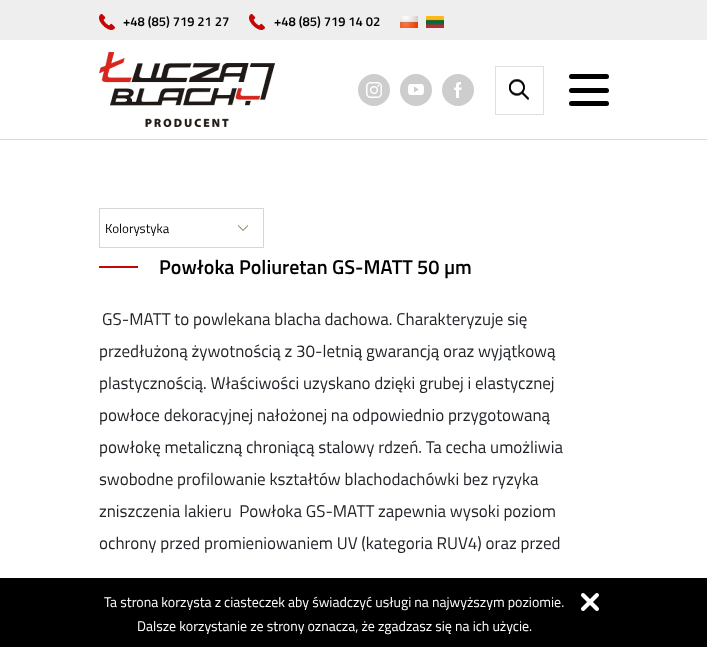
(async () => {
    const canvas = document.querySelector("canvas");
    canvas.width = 707;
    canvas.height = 647;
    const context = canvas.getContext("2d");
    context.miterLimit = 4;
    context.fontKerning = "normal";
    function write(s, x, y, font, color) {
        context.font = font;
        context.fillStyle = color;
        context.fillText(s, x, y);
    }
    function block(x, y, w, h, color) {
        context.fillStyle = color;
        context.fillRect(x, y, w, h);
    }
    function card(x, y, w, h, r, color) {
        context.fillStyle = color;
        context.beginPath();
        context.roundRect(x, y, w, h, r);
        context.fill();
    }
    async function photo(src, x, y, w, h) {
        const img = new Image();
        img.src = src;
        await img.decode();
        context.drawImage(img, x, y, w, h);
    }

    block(0, 0, 707, 647, "rgb(255, 255, 255)");
    block(0, 0, 707, 40, "rgb(238, 238, 238)");
    await photo("media/1.png", 99, 14, 16, 16);
    write("+48 (85) 719 21 27", 123, 26, "600 13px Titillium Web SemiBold", "rgb(0, 0, 0)");
    await photo("media/1.png", 249, 14, 16, 16);
    write("+48 (85) 719 14 02", 274, 26, "600 13px Titillium Web SemiBold", "rgb(0, 0, 0)");
    await photo("media/2.png", 400, 16, 18, 12);
    await photo("media/3.png", 426, 16, 18, 12);
    block(0, 139, 707, 1, "rgb(219, 219, 219)");
    await photo("media/4.png", 99, 52, 176, 75);
    context.fillStyle = "rgb(205, 205, 205)";
    context.beginPath();
    context.arc(374, 90, 16, 0, Math.PI * 2);
    context.fill();
    await photo("media/5.png", 366, 82, 16, 16);
    context.beginPath();
    context.arc(416, 90, 16, 0, Math.PI * 2);
    context.fill();
    await photo("media/6.png", 408, 84, 16, 11);
    context.beginPath();
    context.arc(458, 90, 16, 0, Math.PI * 2);
    context.fill();
    await photo("media/7.png", 454, 82, 8, 16);
    context.strokeStyle = "rgb(223, 223, 223)";
    context.strokeRect(495.5, 66.5, 48, 48);
    await photo("media/8.png", 509, 79, 20, 21);
    await photo("media/9.png", 509, 79, 20, 21);
    card(569, 74, 40, 5, 2.5, "rgb(0, 0, 0)");
    card(569, 88, 40, 5, 2.5, "rgb(0, 0, 0)");
    card(569, 101, 40, 5, 2.5, "rgb(0, 0, 0)");
    await photo("media/10.png", 238, 225, 10, 6);
    context.strokeStyle = "rgb(214, 214, 214)";
    context.strokeRect(99.5, 208.5, 164, 39);
    write("Kolorystyka", 105, 233, "13px Titillium Web", "rgb(0, 0, 0)");
    block(99, 266, 39, 2, "rgb(197, 6, 6)");
    write("Powłoka Poliuretan GS-MATT 50 µm", 159, 274, "600 20px Titillium Web SemiBold", "rgb(0, 0, 0)");
    write("GS-MATT to powlekana blacha dachowa. Charakteryzuje się", 102, 325, "17px Titillium Web", "rgb(33, 37, 41)");
    write("przedłużoną żywotnością z 30-letnią gwarancją oraz wyjątkową", 99, 357, "17px Titillium Web", "rgb(33, 37, 41)");
    write("plastycznością. Właściwości uzyskano dzięki grubej i elastycznej", 99, 389, "17px Titillium Web", "rgb(33, 37, 41)");
    write("powłoce dekoracyjnej nałożonej na odpowiednio przygotowaną", 99, 421, "17px Titillium Web", "rgb(33, 37, 41)");
    write("powłokę metaliczną chroniącą stalowy rdzeń. Ta cecha umożliwia", 99, 453, "17px Titillium Web", "rgb(33, 37, 41)");
    write("swobodne profilowanie kształtów blachodachówki bez ryzyka", 99, 485, "17px Titillium Web", "rgb(33, 37, 41)");
    write("zniszczenia lakieru  Powłoka GS-MATT zapewnia wysoki poziom", 99, 517, "17px Titillium Web", "rgb(33, 37, 41)");
    write("ochrony przed promieniowaniem UV (kategoria RUV4) oraz przed", 99, 549, "17px Titillium Web", "rgb(33, 37, 41)");
    block(0, 578, 707, 69, "rgb(0, 0, 0)");
    write("Ta strona korzysta z ciasteczek aby świadczyć usługi na najwyższym poziomie.", 104, 607, "14px Titillium Web", "rgb(255, 255, 255)");
    write("Dalsze korzystanie ze strony oznacza, że zgadzasz się na ich użycie.", 137, 631, "14px Titillium Web", "rgb(255, 255, 255)");
    await photo("media/11.png", 581, 593, 18, 18);
})();
